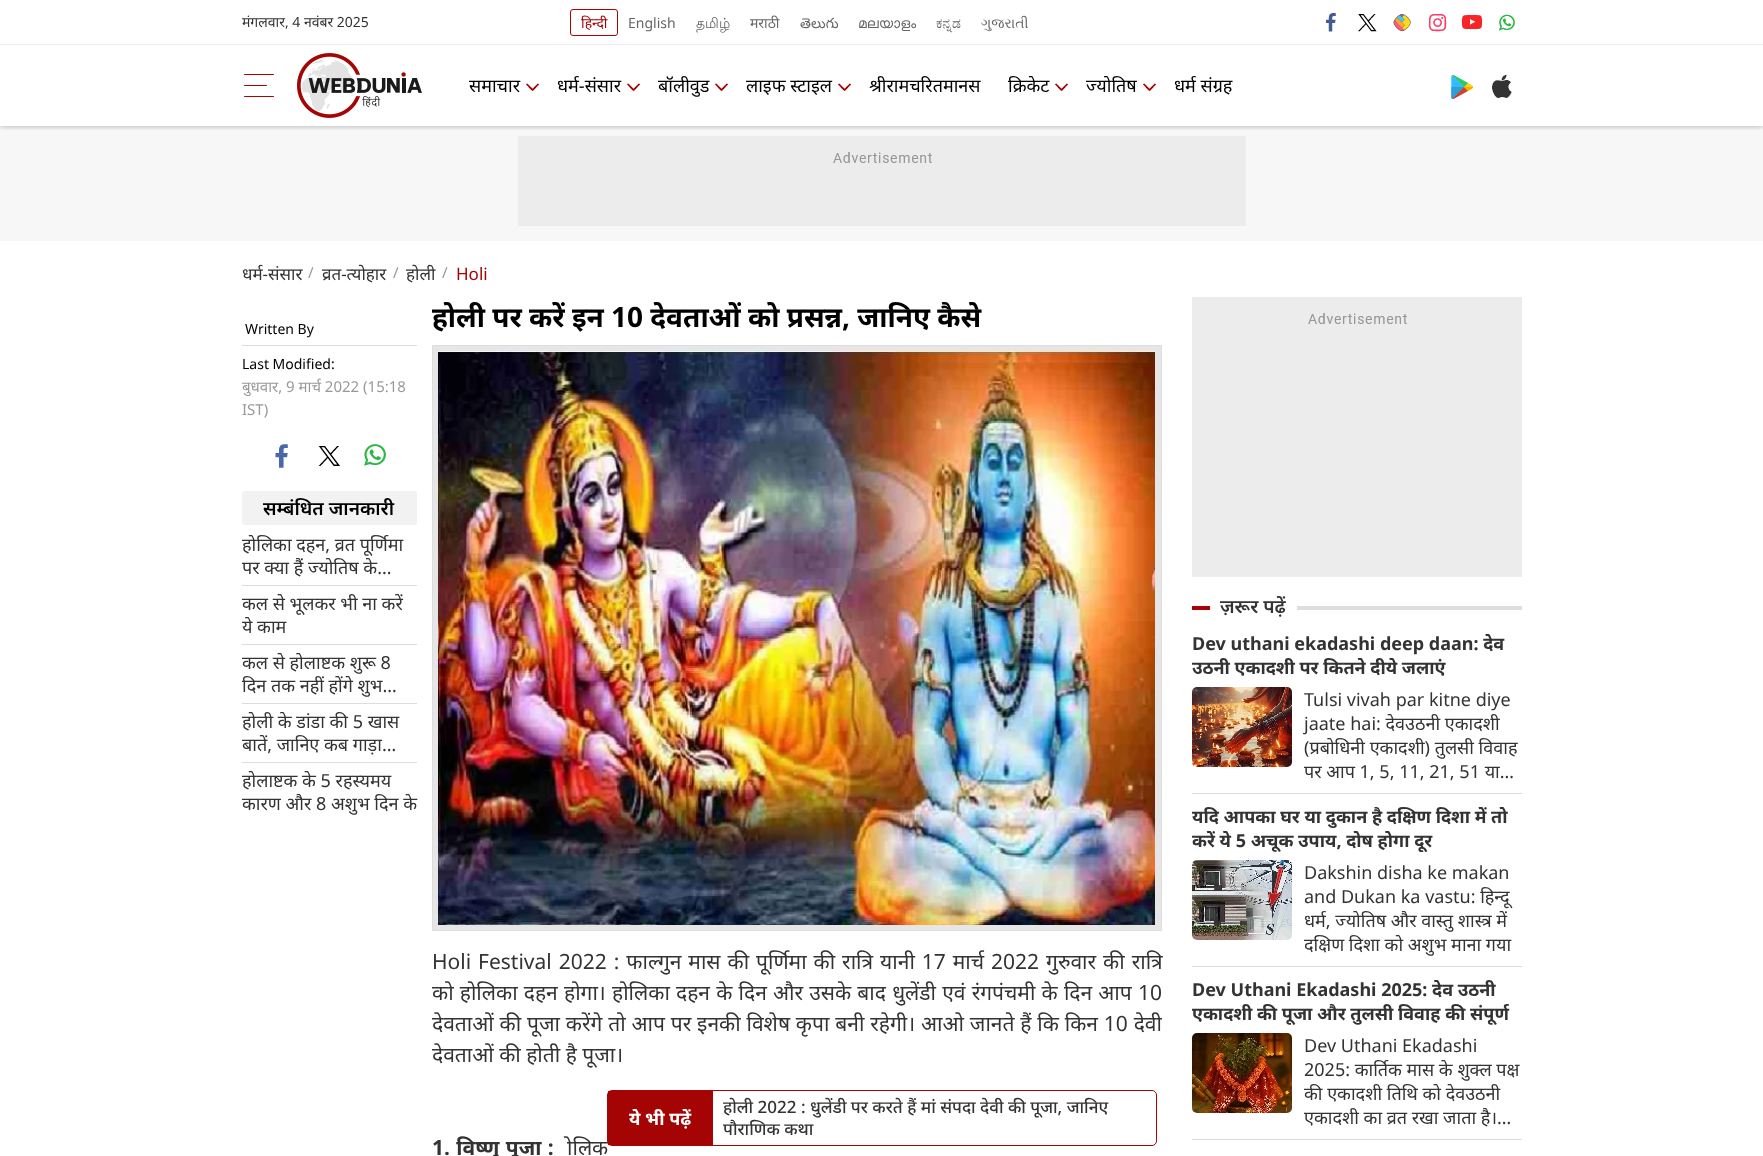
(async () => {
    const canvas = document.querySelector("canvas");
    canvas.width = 1763;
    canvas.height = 1156;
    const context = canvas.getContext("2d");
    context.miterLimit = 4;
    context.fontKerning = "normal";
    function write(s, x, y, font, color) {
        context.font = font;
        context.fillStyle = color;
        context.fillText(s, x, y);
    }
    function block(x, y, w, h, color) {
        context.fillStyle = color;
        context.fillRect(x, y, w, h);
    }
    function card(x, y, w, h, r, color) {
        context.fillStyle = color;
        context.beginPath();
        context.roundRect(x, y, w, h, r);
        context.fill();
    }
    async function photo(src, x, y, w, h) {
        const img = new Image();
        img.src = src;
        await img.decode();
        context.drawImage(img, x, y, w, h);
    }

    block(0, 0, 1763, 1156, "rgb(255, 255, 255)");
    block(0, 126, 1763, 115, "rgb(247, 247, 247)");
    context.save();
    context.beginPath();
    context.rect(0, 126, 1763, 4);
    context.clip();
    context.fillStyle = "rgba(0, 0, 0, 0.3)";
    context.filter = "blur(3px)";
    context.beginPath();
    context.rect(0, 45, 1763, 81);
    context.fill();
    context.filter = "none";
    context.restore();
    block(0, 40, 1763, 4, "rgb(255, 255, 255)");
    block(0, 44, 1763, 1, "rgb(236, 236, 236)");
    write("मंगलवार, 4 नवंबर 2025", 242, 27, "14px Noto Sans", "rgb(51, 51, 51)");
    context.beginPath();
    context.roundRect(570.5, 9.5, 47, 26, 2.5);
    context.strokeStyle = "rgb(165, 4, 4)";
    context.stroke();
    write("हिन्दी", 581, 28, "14px Noto Sans", "rgb(165, 4, 4)");
    write("English", 628, 28, "14px Noto Sans", "rgb(102, 102, 102)");
    write("தமிழ்", 696, 28, "14px Lohit Tamil", "rgb(102, 102, 102)");
    write("मराठी", 750, 28, "14px Noto Sans", "rgb(102, 102, 102)");
    write("తెలుగు", 800, 28, "14px Noto Sans Telugu", "rgb(102, 102, 102)");
    write("മലയാളം", 858, 28, "14px FreeSans", "rgb(102, 102, 102)");
    write("ಕನ್ನಡ", 936, 28, "14px FreeSerif", "rgb(102, 102, 102)");
    write("ગુજરાતી", 981, 28, "14px FreeSerif", "rgb(102, 102, 102)");
    await photo("media/1.png", 1326, 13, 10, 19);
    await photo("media/2.png", 1358, 14, 19, 18);
    await photo("media/3.png", 1393, 14, 18, 18);
    await photo("media/4.png", 1429, 14, 18, 18);
    await photo("media/5.png", 1462, 15, 20, 14);
    await photo("media/6.png", 1499, 14, 16, 17);
    card(244, 74, 30, 1, 0.5, "rgb(165, 4, 4)");
    card(244, 85, 23, 1, 0.5, "rgb(165, 4, 4)");
    card(244, 96, 30, 1, 0.5, "rgb(165, 4, 4)");
    await photo("media/7.png", 297, 53, 125, 65);
    write("समाचार", 469, 92, "18px Noto Sans", "rgb(0, 0, 0)");
    await photo("media/8.png", 526, 83, 13, 8);
    write("धर्म-संसार", 557, 92, "18px Noto Sans", "rgb(0, 0, 0)");
    await photo("media/8.png", 627, 83, 13, 8);
    write("बॉलीवुड", 658, 92, "18px Noto Sans", "rgb(0, 0, 0)");
    await photo("media/8.png", 715, 83, 13, 8);
    write("लाइफ स्‍टाइल", 746, 92, "18px Noto Sans", "rgb(0, 0, 0)");
    await photo("media/8.png", 838, 83, 13, 8);
    write("श्रीरामचरितमानस", 869, 92, "18px Noto Sans", "rgb(0, 0, 0)");
    write("क्रिकेट", 1008, 92, "18px Noto Sans", "rgb(0, 0, 0)");
    await photo("media/8.png", 1055, 83, 13, 8);
    write("ज्योतिष", 1086, 92, "18px Noto Sans", "rgb(0, 0, 0)");
    await photo("media/8.png", 1143, 83, 13, 8);
    write("धर्म संग्रह", 1174, 92, "18px Noto Sans", "rgb(0, 0, 0)");
    await photo("media/9.png", 1451, 75, 22, 24);
    await photo("media/10.png", 1492, 74, 20, 24);
    block(518, 136, 728, 90, "rgb(236, 236, 236)");
    await photo("media/11.png", 833, 152, 99, 11);
    write("धर्म-संसार", 242, 280, "17px Noto Sans", "rgb(51, 51, 51)");
    write("/", 308, 278, "15px Noto Sans", "rgb(153, 153, 153)");
    write("व्रत-त्योहार", 322, 280, "17px Noto Sans", "rgb(51, 51, 51)");
    write("/", 393, 278, "15px Noto Sans", "rgb(153, 153, 153)");
    write("होली", 406, 280, "17px Noto Sans", "rgb(51, 51, 51)");
    write("/", 442, 278, "15px Noto Sans", "rgb(153, 153, 153)");
    write("Holi", 456, 280, "17px Noto Sans", "rgb(165, 4, 4)");
    block(242, 345, 175, 1, "rgb(221, 221, 221)");
    write("Written By", 245, 334, "14px Noto Sans", "rgb(0, 0, 0)");
    write("Last Modified:", 242, 369, "14px Noto Sans", "rgb(0, 0, 0)");
    write("बुधवार, 9 मार्च 2022 (15:18", 242, 392, "15px Noto Sans", "rgb(153, 153, 153)");
    write("IST)", 242, 415, "15px Noto Sans", "rgb(153, 153, 153)");
    await photo("media/12.png", 275, 444, 13, 24);
    await photo("media/13.png", 318, 446, 22, 20);
    await photo("media/14.png", 364, 444, 22, 22);
    card(242, 491, 175, 34, 3, "rgb(242, 242, 242)");
    write("सम्बंधित जानकारी", 263, 515, "600 19px Noto Sans", "rgb(0, 0, 0)");
    block(242, 585, 175, 1, "rgb(221, 221, 221)");
    context.save();
    context.beginPath();
    context.rect(242, 533, 175, 46);
    context.clip();
    write("होलिका दहन, व्रत पूर्णिमा", 242, 551, "18px Noto Sans", "rgb(51, 51, 51)");
    context.restore();
    write("पर क्या हैं ज्योतिष के…", 242, 574, "18px Noto Sans", "rgb(51, 51, 51)");
    block(242, 644, 175, 1, "rgb(221, 221, 221)");
    write("कल से भूलकर भी ना करें", 242, 610, "18px Noto Sans", "rgb(51, 51, 51)");
    context.save();
    context.beginPath();
    context.rect(242, 592, 175, 46);
    context.clip();
    write("ये काम", 242, 633, "18px Noto Sans", "rgb(51, 51, 51)");
    context.restore();
    block(242, 703, 175, 1, "rgb(221, 221, 221)");
    write("कल से होलाष्टक शुरू 8", 242, 669, "18px Noto Sans", "rgb(51, 51, 51)");
    write("दिन तक नहीं होंगे शुभ…", 242, 692, "18px Noto Sans", "rgb(51, 51, 51)");
    block(242, 762, 175, 1, "rgb(221, 221, 221)");
    context.save();
    context.beginPath();
    context.rect(242, 710, 175, 46);
    context.clip();
    write("होली के डांडा की 5 खास", 242, 728, "18px Noto Sans", "rgb(51, 51, 51)");
    context.restore();
    write("बातें, जानिए कब गाड़ा…", 242, 751, "18px Noto Sans", "rgb(51, 51, 51)");
    context.save();
    context.beginPath();
    context.rect(242, 769, 175, 46);
    context.clip();
    write("होलाष्टक के 5 रहस्यमय", 242, 787, "18px Noto Sans", "rgb(51, 51, 51)");
    context.restore();
    write("कारण और 8 अशुभ दिन के", 242, 810, "18px Noto Sans", "rgb(51, 51, 51)");
    context.save();
    context.beginPath();
    context.rect(432, 297, 730, 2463);
    context.clip();
    write("होली पर करें इन 10 देवताओं को प्रसन्न, जानिए कैसे", 432, 327, "bold 28px Noto Sans", "rgb(0, 0, 0)");
    context.restore();
    context.fillStyle = "rgb(230, 230, 230)";
    context.beginPath();
    context.rect(432.5, 345.5, 729, 585);
    context.fill();
    context.strokeStyle = "rgb(221, 221, 221)";
    context.stroke();
    await photo("media/15.png", 438, 351, 717, 574);
    context.wordSpacing = "1.5px";
    write("Holi Festival 2022 : फाल्गुन मास की पूर्णिमा की रात्रि यानी 17 मार्च 2022 गुरुवार की रात्रि", 432, 969, "21px Noto Sans", "rgb(51, 51, 51)");
    context.save();
    context.beginPath();
    context.rect(432, 297, 730, 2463);
    context.clip();
    context.wordSpacing = "0.75px";
    write("को होलिका दहन होगा। होलिका दहन के दिन और उसके बाद धुलेंडी एवं रंगपंचमी के दिन आप 10", 432, 1000, "21px Noto Sans", "rgb(51, 51, 51)");
    context.wordSpacing = "0.4px";
    write("देवताओं की पूजा करेंगे तो आप पर इनकी विशेष कृपा बनी रहेगी। आओ जानते हैं कि किन 10 देवी", 432, 1031, "21px Noto Sans", "rgb(51, 51, 51)");
    context.wordSpacing = "0px";
    write("देवताओं की होती है पूजा।", 432, 1062, "21px Noto Sans", "rgb(51, 51, 51)");
    context.restore();
    context.wordSpacing = "1px";
    write("1. विष्णु पूजा :", 432, 1155, "bold 21px Noto Sans", "rgb(51, 51, 51)");
    write("ोलिक", 567, 1155, "21px Noto Sans", "rgb(51, 51, 51)");
    context.fillStyle = "rgb(255, 255, 255)";
    context.beginPath();
    context.roundRect(607.5, 1090.5, 549, 55, 4.5);
    context.fill();
    context.strokeStyle = "rgb(165, 4, 4)";
    context.stroke();
    block(608, 1091, 105, 54, "rgb(165, 4, 4)");
    context.wordSpacing = "0px";
    write("ये भी पढ़ें", 629, 1125, "bold 18px Noto Sans", "rgb(255, 255, 255)");
    context.save();
    context.beginPath();
    context.rect(723, 1096, 423, 44);
    context.clip();
    write("होली 2022 : धुलेंडी पर करते हैं मां संपदा देवी की पूजा, जानिए", 723, 1113, "500 17px Noto Sans", "rgb(51, 51, 51)");
    write("पौराणिक कथा", 723, 1135, "500 17px Noto Sans", "rgb(51, 51, 51)");
    context.restore();
    block(1192, 297, 330, 280, "rgb(236, 236, 236)");
    await photo("media/11.png", 1308, 313, 99, 11);
    block(1192, 606, 18, 4, "rgb(165, 4, 4)");
    write("ज़रूर पढ़ें", 1220, 613, "600 19px Noto Sans", "rgb(51, 51, 51)");
    block(1297, 606, 225, 4, "rgb(221, 221, 221)");
    block(1192, 793, 330, 1, "rgb(221, 221, 221)");
    write("Dev uthani ekadashi deep daan: देव", 1192, 650, "bold 18px Noto Sans", "rgb(51, 51, 51)");
    context.save();
    context.beginPath();
    context.rect(1192, 631, 330, 48);
    context.clip();
    write("उठनी एकादशी पर कितने दीये जलाएं", 1192, 674, "bold 18px Noto Sans", "rgb(51, 51, 51)");
    context.restore();
    await photo("media/16.png", 1192, 687, 100, 80);
    write("Tulsi vivah par kitne diye", 1304, 706, "18px Noto Sans", "rgb(51, 51, 51)");
    write("jaate hai: देवउठनी एकादशी", 1304, 730, "18px Noto Sans", "rgb(51, 51, 51)");
    write("(प्रबोधिनी एकादशी) तुलसी विवाह", 1304, 754, "18px Noto Sans", "rgb(51, 51, 51)");
    write("पर आप 1, 5, 11, 21, 51 या…", 1304, 778, "18px Noto Sans", "rgb(51, 51, 51)");
    block(1192, 966, 330, 1, "rgb(221, 221, 221)");
    context.save();
    context.beginPath();
    context.rect(1192, 804, 330, 48);
    context.clip();
    write("यदि आपका घर या दुकान है दक्षिण दिशा में तो", 1192, 823, "bold 18px Noto Sans", "rgb(51, 51, 51)");
    write("करें ये 5 अचूक उपाय, दोष होगा दूर", 1192, 847, "bold 18px Noto Sans", "rgb(51, 51, 51)");
    context.restore();
    await photo("media/17.png", 1192, 860, 100, 80);
    write("Dakshin disha ke makan", 1304, 879, "18px Noto Sans", "rgb(51, 51, 51)");
    write("and Dukan ka vastu: हिन्दू", 1304, 903, "18px Noto Sans", "rgb(51, 51, 51)");
    write("धर्म, ज्योतिष और वास्तु शास्त्र में", 1304, 927, "18px Noto Sans", "rgb(51, 51, 51)");
    write("दक्षिण दिशा को अशुभ माना गया", 1304, 951, "18px Noto Sans", "rgb(51, 51, 51)");
    block(1192, 1139, 330, 1, "rgb(221, 221, 221)");
    write("Dev Uthani Ekadashi 2025: देव उठनी", 1192, 996, "bold 18px Noto Sans", "rgb(51, 51, 51)");
    context.save();
    context.beginPath();
    context.rect(1192, 977, 330, 48);
    context.clip();
    write("एकादशी की पूजा और तुलसी विवाह की संपूर्ण", 1192, 1020, "bold 18px Noto Sans", "rgb(51, 51, 51)");
    context.restore();
    await photo("media/18.png", 1192, 1033, 100, 80);
    write("Dev Uthani Ekadashi", 1304, 1052, "18px Noto Sans", "rgb(51, 51, 51)");
    write("2025: कार्तिक मास के शुक्ल पक्ष", 1304, 1076, "18px Noto Sans", "rgb(51, 51, 51)");
    write("की एकादशी तिथि को देवउठनी", 1304, 1100, "18px Noto Sans", "rgb(51, 51, 51)");
    write("एकादशी का व्रत रखा जाता है।…", 1304, 1124, "18px Noto Sans", "rgb(51, 51, 51)");
})();
